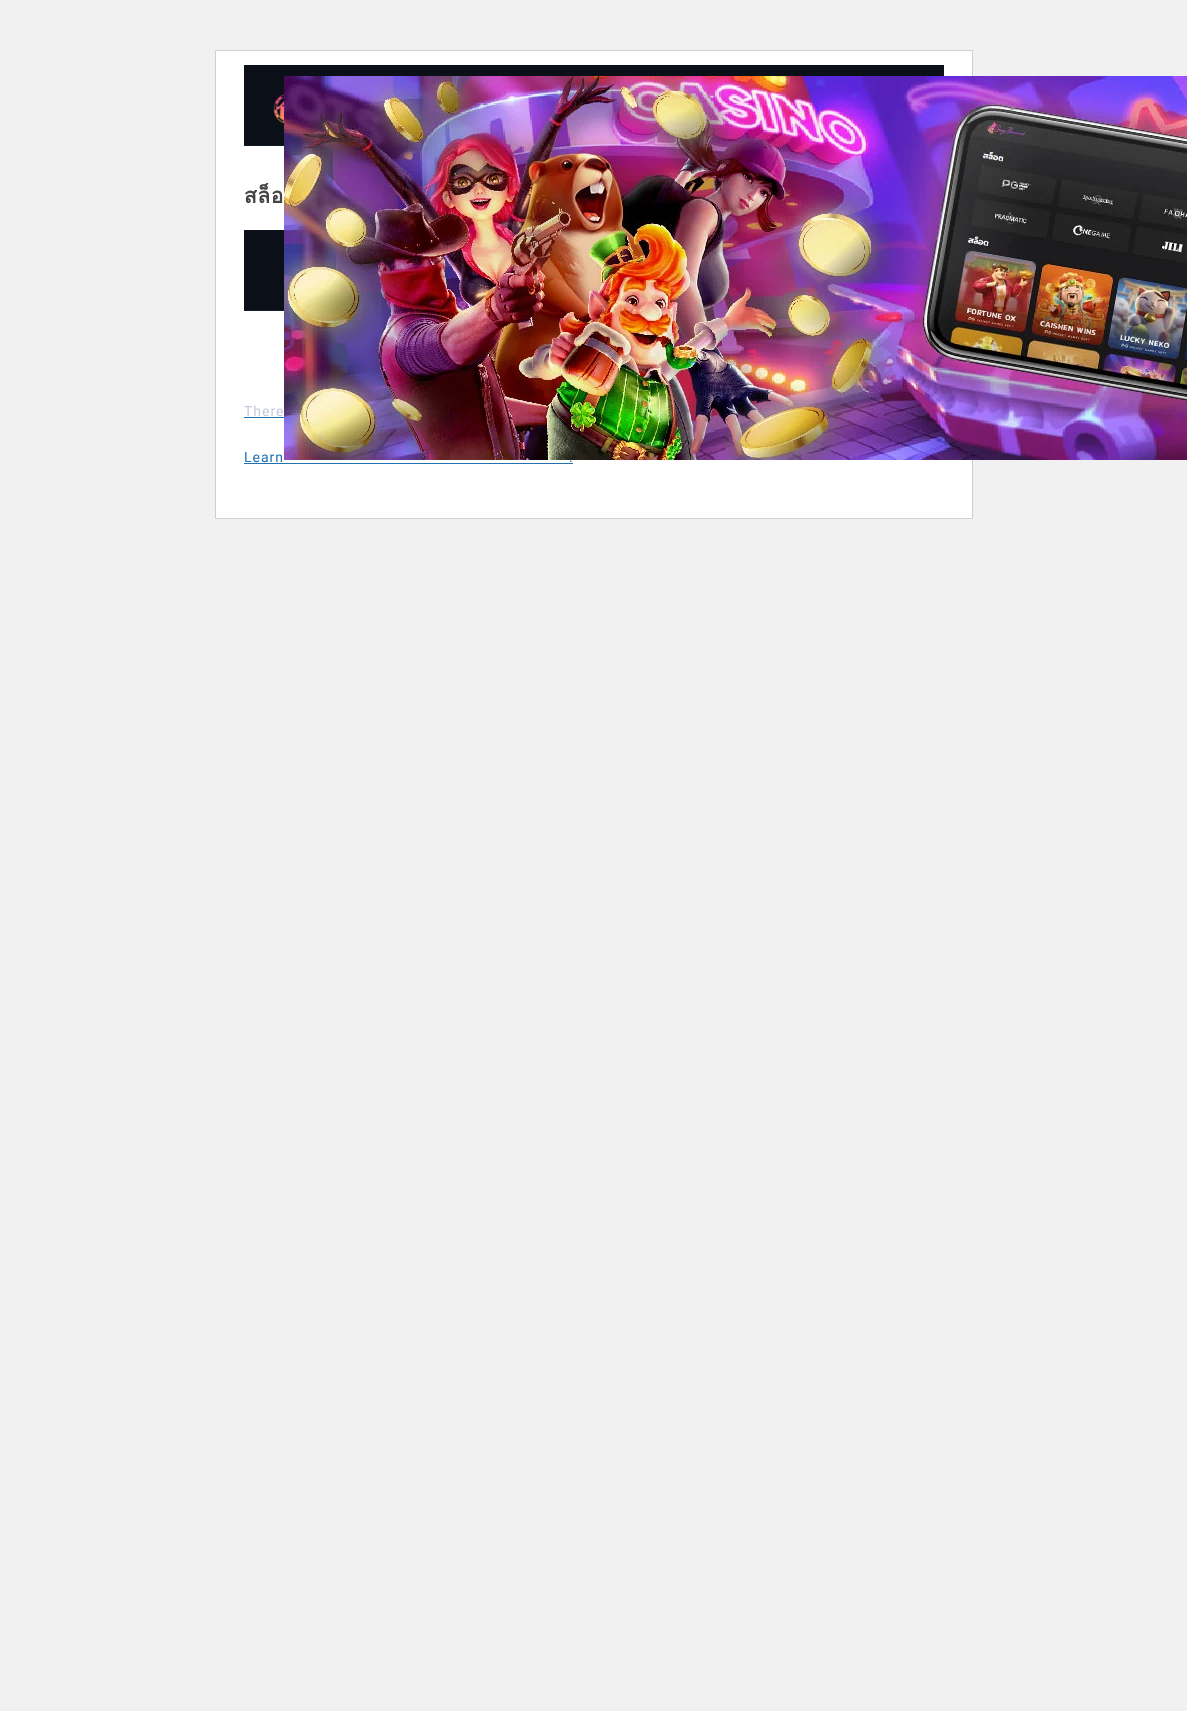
(async () => {
    const canvas = document.querySelector("canvas");
    canvas.width = 1187;
    canvas.height = 1711;
    const context = canvas.getContext("2d");
    context.miterLimit = 4;
    context.fontKerning = "normal";
    function write(s, x, y, font, color) {
        context.font = font;
        context.fillStyle = color;
        context.fillText(s, x, y);
    }
    function block(x, y, w, h, color) {
        context.fillStyle = color;
        context.fillRect(x, y, w, h);
    }
    async function photo(src, x, y, w, h) {
        const img = new Image();
        img.src = src;
        await img.decode();
        context.drawImage(img, x, y, w, h);
    }

    block(0, 0, 1187, 1711, "rgb(241, 241, 241)");
    context.fillStyle = "rgb(255, 255, 255)";
    context.beginPath();
    context.rect(215.5, 50.5, 757, 468);
    context.fill();
    context.strokeStyle = "rgb(204, 208, 212)";
    context.stroke();
    block(244, 65, 700, 80, "rgb(11, 15, 23)");
    block(244, 145, 40, 1, "rgb(21, 29, 44)");
    await photo("media/1.png", 273, 94, 11, 30);
    context.letterSpacing = "0.5px";
    write("สล็อ", 244, 203, "bold 21px Loma", "rgb(68, 68, 68)");
    block(244, 230, 40, 80, "rgb(11, 15, 23)");
    block(244, 310, 40, 1, "rgb(21, 29, 44)");
    await photo("media/2.png", 284, 76, 903, 384);
    context.letterSpacing = "1px";
    write("There", 244, 416, "14px Roboto", "rgb(197, 204, 218)");
    block(244, 417, 40, 1, "rgb(34, 113, 177)");
    write("Learn", 244, 462, "14px Roboto", "rgb(34, 113, 177)");
    write(".", 569, 462, "14px Roboto", "rgb(34, 113, 177)");
    block(244, 463, 329, 1, "rgb(34, 113, 177)");
})();
